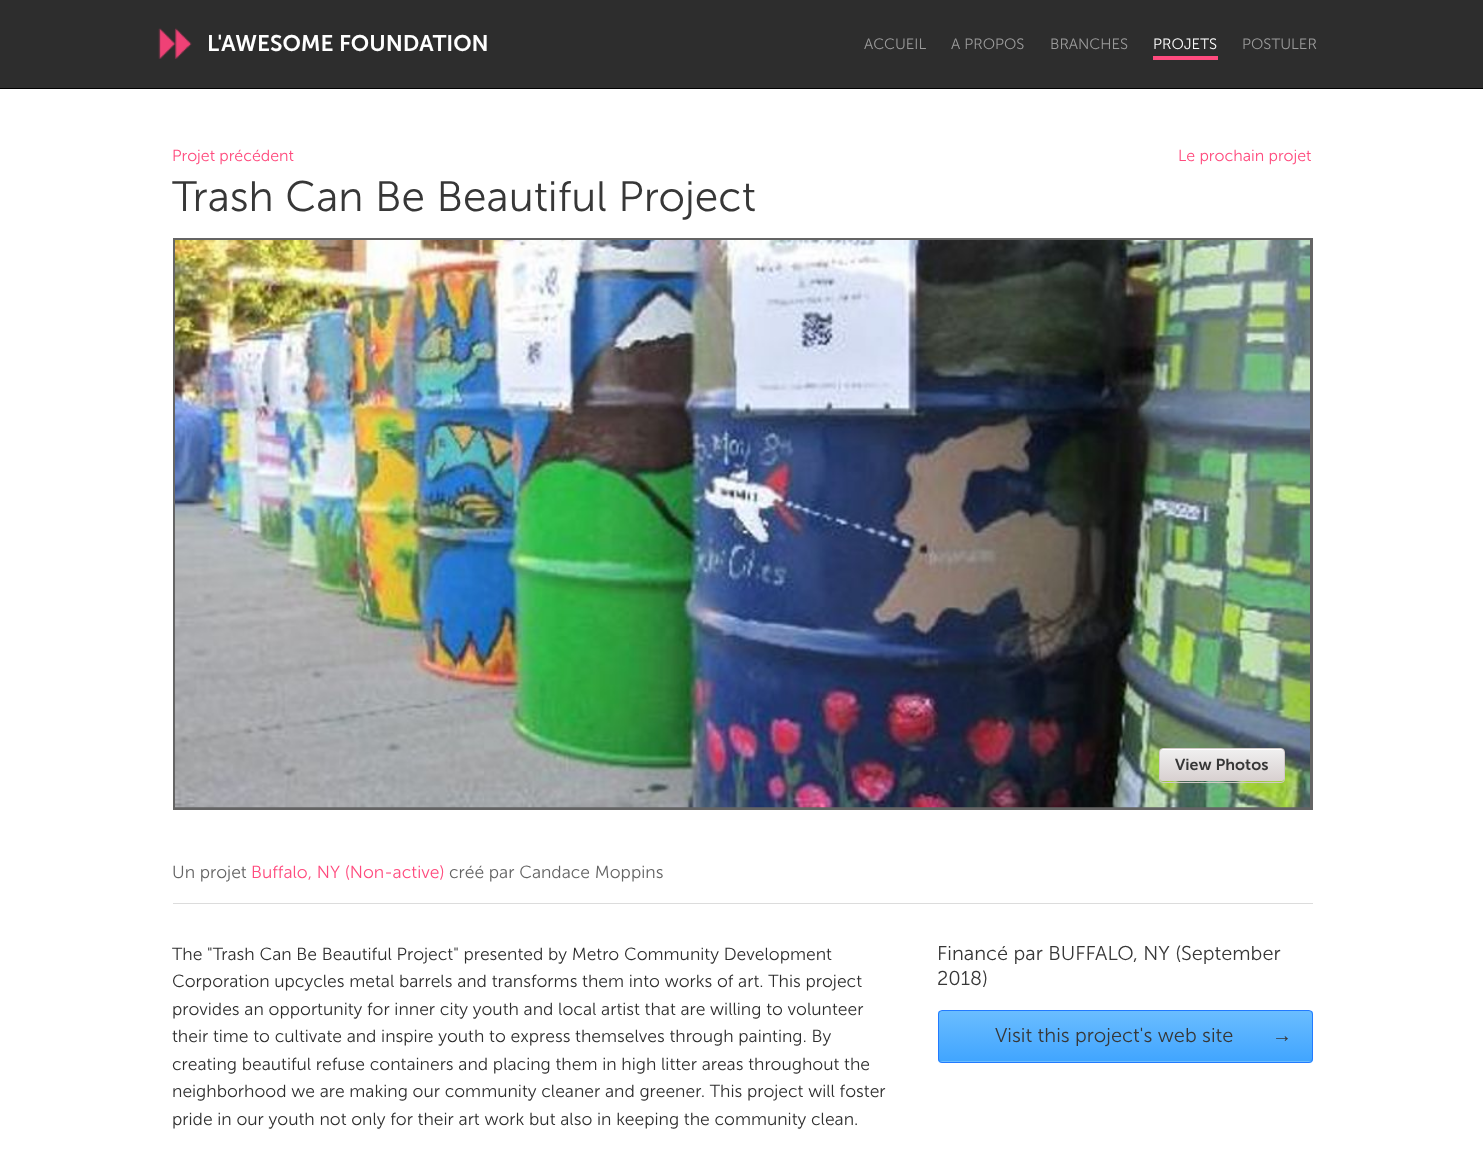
(async () => {
    const canvas = document.querySelector("canvas");
    canvas.width = 1483;
    canvas.height = 1167;
    const context = canvas.getContext("2d");
    context.miterLimit = 4;
    context.fontKerning = "normal";
    function write(s, x, y, font, color) {
        context.font = font;
        context.fillStyle = color;
        context.fillText(s, x, y);
    }
    function block(x, y, w, h, color) {
        context.fillStyle = color;
        context.fillRect(x, y, w, h);
    }
    async function photo(src, x, y, w, h) {
        const img = new Image();
        img.src = src;
        await img.decode();
        context.drawImage(img, x, y, w, h);
    }
    let gradient;

    block(0, 0, 1483, 1167, "rgb(255, 255, 255)");
    block(0, 0, 1483, 88, "rgb(45, 45, 45)");
    block(0, 88, 1483, 1, "rgb(0, 0, 0)");
    await photo("media/1.png", 158, 28, 34, 31);
    write("L'AWESOME FOUNDATION", 207, 51, "600 22.5px 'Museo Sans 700'", "rgb(255, 255, 255)");
    write("ACCUEIL", 864, 49, "300 15px 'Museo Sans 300'", "rgb(155, 155, 155)");
    write("A PROPOS", 951, 49, "300 15px 'Museo Sans 300'", "rgb(155, 155, 155)");
    write("BRANCHES", 1050, 49, "300 15px 'Museo Sans 300'", "rgb(155, 155, 155)");
    block(1153, 56, 65, 4, "rgb(255, 75, 126)");
    write("PROJETS", 1153, 49, "300 15px 'Museo Sans 300'", "rgb(255, 255, 255)");
    write("POSTULER", 1242, 49, "300 15px 'Museo Sans 300'", "rgb(155, 155, 155)");
    write("Projet précédent", 172, 161, "300 16px 'Museo Sans 300'", "rgb(255, 75, 126)");
    write("Le prochain projet", 1178, 161, "300 16px 'Museo Sans 300'", "rgb(255, 75, 126)");
    write("Trash Can Be Beautiful Project", 172, 211, "300 42.5px 'Museo Sans 300'", "rgb(55, 55, 55)");
    block(173, 238, 1140, 572, "rgb(100, 100, 100)");
    await photo("media/2.png", 175, 240, 1135, 568);
    gradient = context.createLinearGradient(1222, 749, 1222, 781);
    gradient.addColorStop(0, "rgb(240, 240, 240)");
    gradient.addColorStop(1, "rgb(216, 208, 208)");
    context.fillStyle = gradient;
    context.beginPath();
    context.roundRect(1160, 749, 124, 32, 2.5);
    context.fill();
    context.fillStyle = "rgb(255, 255, 255)";
    context.beginPath();
    context.moveTo(1162, 750);
    context.lineTo(1281, 750);
    context.bezierCurveTo(1283, 750, 1284, 751, 1284, 752);
    context.bezierCurveTo(1284, 750, 1283, 749, 1282, 749);
    context.lineTo(1162, 749);
    context.bezierCurveTo(1160, 750, 1160, 751, 1160, 752);
    context.bezierCurveTo(1160, 751, 1161, 750, 1162, 750);
    context.closePath();
    context.fill();
    context.beginPath();
    context.roundRect(1159.5, 748.5, 125, 34, 3.5);
    context.strokeStyle = "rgb(209, 200, 200)";
    context.stroke();
    write("View Photos", 1175, 770, "600 16px 'Museo Sans 700'", "rgb(55, 55, 55)");
    block(173, 903, 1140, 1, "rgb(220, 220, 220)");
    write("Un projet", 172, 878, "300 17.5px 'Museo Sans 300'", "rgb(100, 100, 100)");
    write("Buffalo, NY (Non-active)", 251, 878, "300 17.5px 'Museo Sans 300'", "rgb(255, 75, 126)");
    write("créé par Candace Moppins", 449, 878, "300 17.5px 'Museo Sans 300'", "rgb(100, 100, 100)");
    write("The \"Trash Can Be Beautiful Project\" presented by Metro Community Development", 172, 960, "300 17.5px 'Museo Sans 300'", "rgb(46, 46, 46)");
    write("Corporation upcycles metal barrels and transforms them into works of art. This project", 172, 987, "300 17.5px 'Museo Sans 300'", "rgb(46, 46, 46)");
    write("provides an opportunity for inner city youth and local artist that are willing to volunteer", 172, 1015, "300 17.5px 'Museo Sans 300'", "rgb(46, 46, 46)");
    write("their time to cultivate and inspire youth to express themselves through painting. By", 172, 1042, "300 17.5px 'Museo Sans 300'", "rgb(46, 46, 46)");
    write("creating beautiful refuse containers and placing them in high litter areas throughout the", 172, 1070, "300 17.5px 'Museo Sans 300'", "rgb(46, 46, 46)");
    write("neighborhood we are making our community cleaner and greener. This project will foster", 172, 1097, "300 17.5px 'Museo Sans 300'", "rgb(46, 46, 46)");
    write("pride in our youth not only for their art work but also in keeping the community clean.", 172, 1125, "300 17.5px 'Museo Sans 300'", "rgb(46, 46, 46)");
    write("Financé par BUFFALO, NY (September", 937, 960, "300 20px 'Museo Sans 300'", "rgb(55, 55, 55)");
    write("2018)", 937, 985, "300 20px 'Museo Sans 300'", "rgb(55, 55, 55)");
    context.save();
    context.beginPath();
    context.roundRect(938, 1010, 375, 53, 4);
    context.clip();
    gradient = context.createLinearGradient(1125, 1011, 1125, 1061);
    gradient.addColorStop(0, "rgb(106, 189, 255)");
    gradient.addColorStop(1, "rgb(65, 165, 255)");
    context.fillStyle = gradient;
    context.fillRect(938, 1011, 375, 50);
    gradient = context.createLinearGradient(1125, 1061, 1125, 1111);
    gradient.addColorStop(0, "rgb(106, 189, 255)");
    gradient.addColorStop(1, "rgb(65, 165, 255)");
    context.fillStyle = gradient;
    context.fillRect(938, 1061, 375, 2);
    context.restore();
    context.beginPath();
    context.roundRect(938.5, 1010.5, 374, 52, 3.5);
    context.strokeStyle = "rgb(34, 122, 255)";
    context.stroke();
    write("Visit this project's web site", 995, 1042, "300 20px 'Museo Sans 300'", "rgb(55, 55, 55)");
    write("→", 1272, 1042, "20px Liberation Sans", "rgb(55, 55, 55)");
})();
